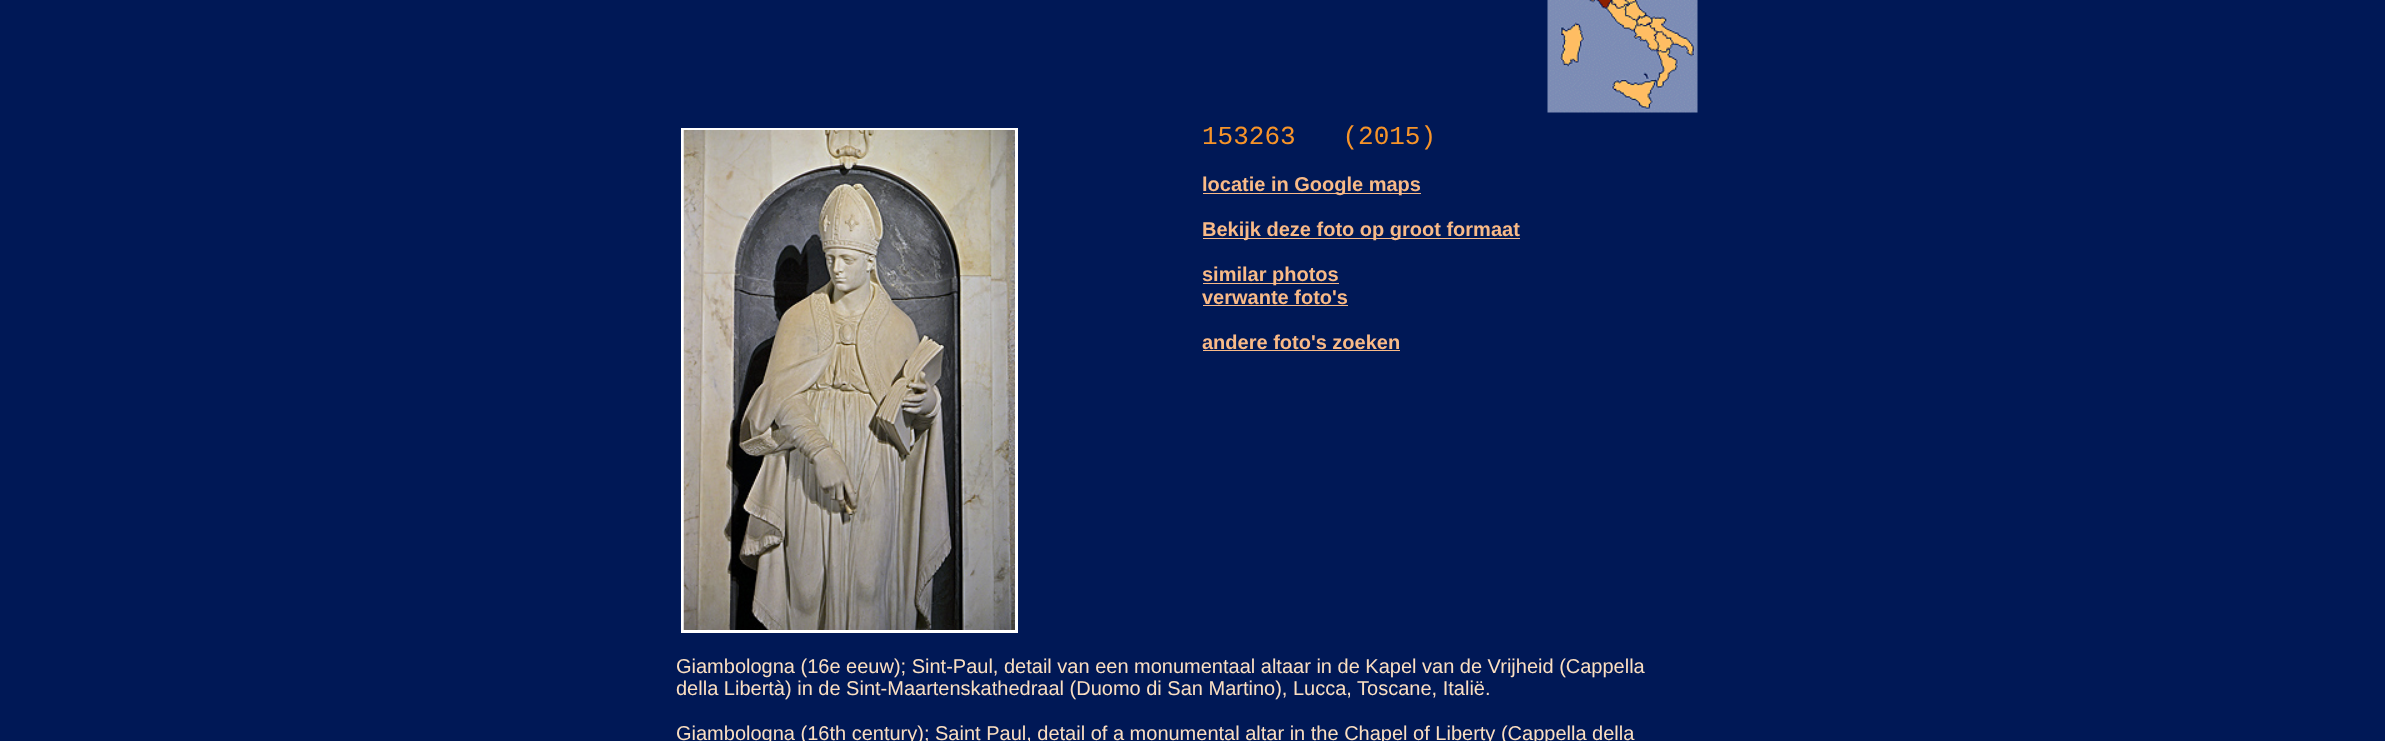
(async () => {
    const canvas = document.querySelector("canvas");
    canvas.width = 2385;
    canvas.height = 741;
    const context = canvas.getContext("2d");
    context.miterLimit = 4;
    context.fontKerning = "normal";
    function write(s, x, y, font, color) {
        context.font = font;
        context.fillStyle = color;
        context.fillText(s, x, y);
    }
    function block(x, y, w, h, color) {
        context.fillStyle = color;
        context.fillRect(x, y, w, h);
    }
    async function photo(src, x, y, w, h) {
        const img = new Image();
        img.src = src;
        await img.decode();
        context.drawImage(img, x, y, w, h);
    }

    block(0, 0, 2385, 741, "rgb(0, 24, 86)");
    await photo("media/1.png", 1547, 0, 151, 113);
    context.strokeStyle = "rgb(255, 255, 255)";
    context.lineWidth = 3;
    context.strokeRect(682.5, 129.5, 334, 502);
    await photo("media/2.png", 683, 130, 332, 500);
    write("153263   (2015)", 1202, 144, "26px Liberation Mono", "rgb(247, 148, 41)");
    block(1203, 193, 218, 1, "rgb(249, 186, 135)");
    write("locatie in Google maps", 1202, 191, "bold 20px Liberation Sans", "rgb(249, 186, 135)");
    block(1203, 238, 317, 1, "rgb(249, 186, 135)");
    write("Bekijk deze foto op groot formaat", 1202, 236, "bold 20px Liberation Sans", "rgb(249, 186, 135)");
    block(1203, 283, 136, 1, "rgb(249, 186, 135)");
    write("similar photos", 1202, 281, "bold 20px Liberation Sans", "rgb(249, 186, 135)");
    write("verwante foto's", 1202, 304, "bold 20px Liberation Sans", "rgb(249, 186, 135)");
    block(1203, 305, 145, 1, "rgb(249, 186, 135)");
    write("andere foto's zoeken", 1202, 349, "bold 20px Liberation Sans", "rgb(249, 186, 135)");
    block(1203, 350, 197, 1, "rgb(249, 186, 135)");
    write("Giambologna (16e eeuw); Sint-Paul, detail van een monumentaal altaar in de Kapel van de Vrijheid (Cappella", 676, 673, "20px Liberation Sans", "rgb(251, 223, 193)");
    write("della Libertà) in de Sint-Maartenskathedraal (Duomo di San Martino), Lucca, Toscane, Italië.", 676, 695, "20px Liberation Sans", "rgb(251, 223, 193)");
    write("Giambologna (16th century); Saint Paul, detail of a monumental altar in the Chapel of Liberty (Cappella della", 676, 740, "20px Liberation Sans", "rgb(251, 223, 193)");
})();
